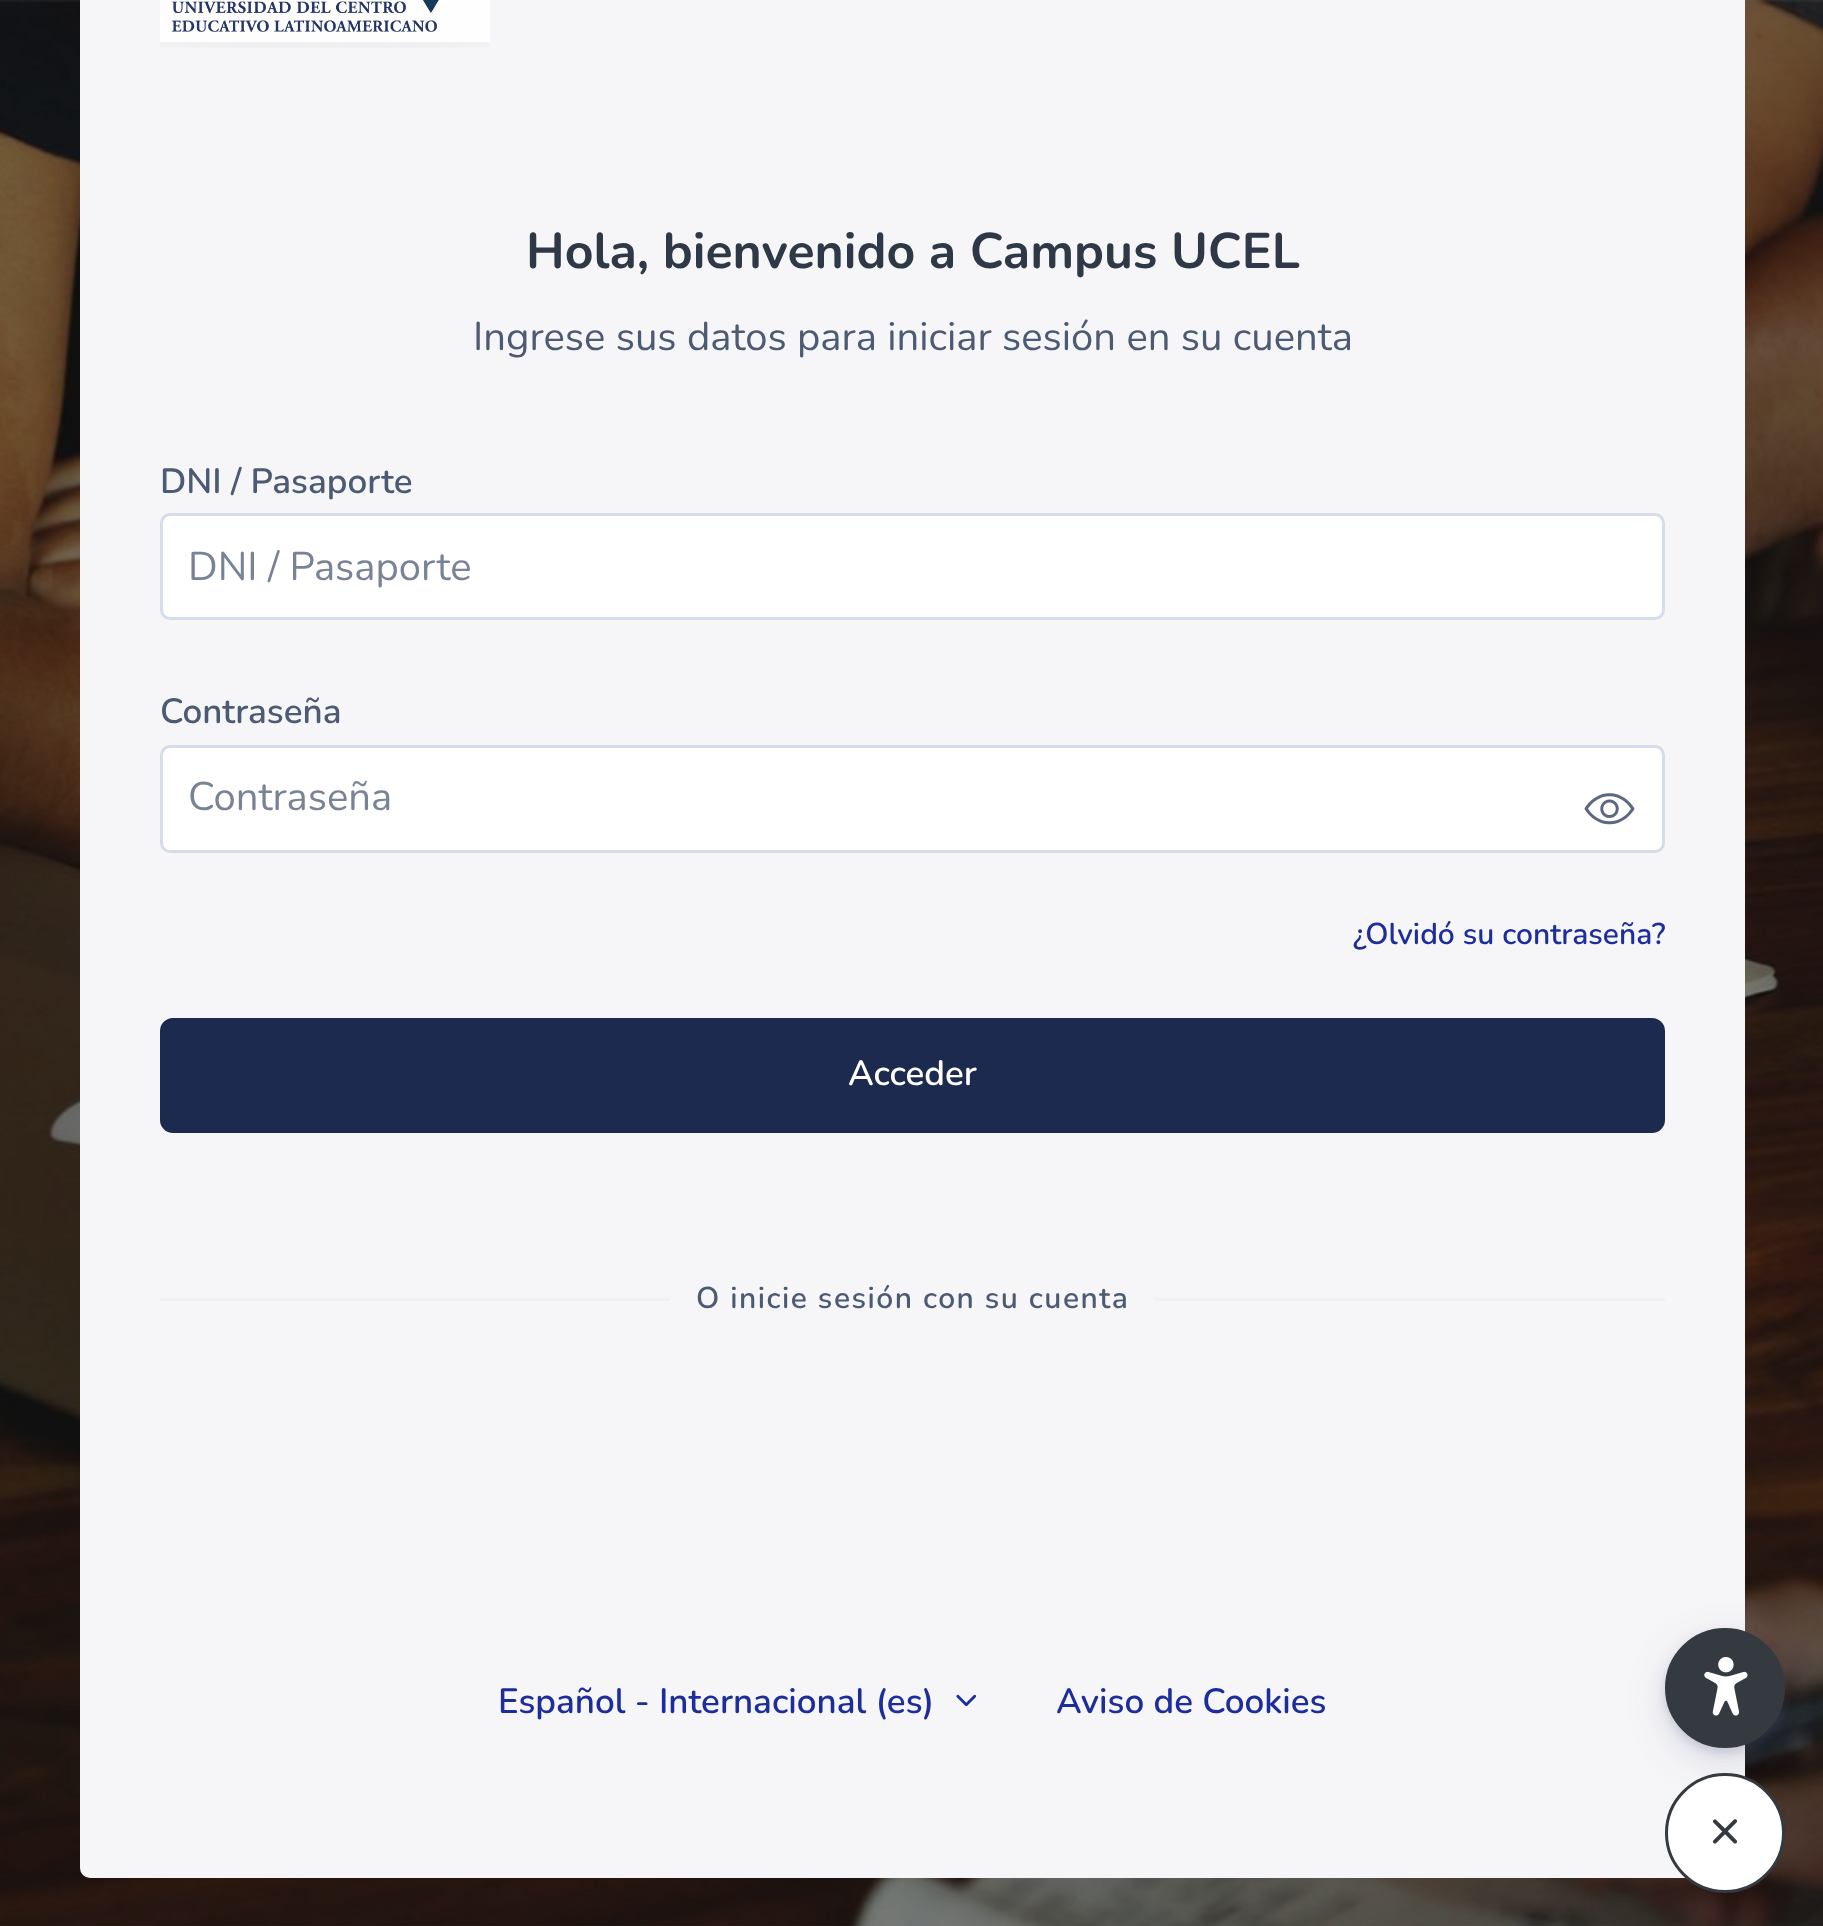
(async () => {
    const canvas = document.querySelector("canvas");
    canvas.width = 1823;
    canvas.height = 1926;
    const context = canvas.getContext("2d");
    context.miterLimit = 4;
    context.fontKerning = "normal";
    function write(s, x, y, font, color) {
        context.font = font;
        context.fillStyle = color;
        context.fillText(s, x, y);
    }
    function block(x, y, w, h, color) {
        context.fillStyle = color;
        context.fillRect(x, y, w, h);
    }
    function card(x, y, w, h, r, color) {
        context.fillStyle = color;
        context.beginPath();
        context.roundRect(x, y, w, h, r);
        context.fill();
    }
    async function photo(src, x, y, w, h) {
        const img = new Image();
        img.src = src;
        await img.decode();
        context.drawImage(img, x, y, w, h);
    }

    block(0, 0, 1823, 1926, "rgb(255, 255, 255)");
    await photo("media/1.png", 0, 0, 1823, 1926);
    card(80, -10, 1665, 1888, 10, "rgb(246, 246, 248)");
    await photo("media/2.png", 160, 0, 330, 48);
    write("Hola, bienvenido a Campus UCEL", 526, 268, "bold 50px Nunito", "rgb(47, 56, 71)");
    write("Ingrese sus datos para iniciar sesión en su cuenta", 473, 350, "40px Nunito", "rgb(76, 90, 115)");
    write("DNI / Pasaporte", 160, 493, "600 35px Nunito", "rgb(76, 90, 115)");
    context.fillStyle = "rgb(255, 255, 255)";
    context.beginPath();
    context.roundRect(161.5, 514.5, 1502, 104, 8.5);
    context.fill();
    context.strokeStyle = "rgb(213, 221, 234)";
    context.lineWidth = 3;
    context.stroke();
    write("DNI / Pasaporte", 188, 580, "40px Nunito", "rgb(121, 131, 150)");
    write("Contraseña", 160, 723, "600 35px Nunito", "rgb(76, 90, 115)");
    context.fillStyle = "rgb(255, 255, 255)";
    context.beginPath();
    context.roundRect(161.5, 746.5, 1502, 105, 8.5);
    context.fill();
    context.stroke();
    write("Contraseña", 188, 810, "40px Nunito", "rgb(121, 131, 150)");
    await photo("media/3.png", 1584, 793, 51, 32);
    write("¿Olvidó su contraseña?", 1353, 944, "600 30px Nunito", "rgb(29, 45, 155)");
    context.fillStyle = "rgb(29, 42, 80)";
    context.beginPath();
    context.roundRect(161.5, 1019.5, 1502, 112, 11.5);
    context.fill();
    context.strokeStyle = "rgb(29, 42, 80)";
    context.stroke();
    write("Acceder", 848, 1085, "600 35px Nunito", "rgb(255, 255, 255)");
    block(160, 1298, 510, 3, "rgb(237, 241, 246)");
    context.letterSpacing = "1.5px";
    write("O inicie sesión con su cuenta", 696, 1308, "600 30px Nunito", "rgb(76, 90, 115)");
    block(1155, 1298, 510, 3, "rgb(237, 241, 246)");
    context.letterSpacing = "0px";
    write("Español - Internacional (es)", 498, 1713, "600 35px Nunito", "rgb(29, 45, 155)");
    await photo("media/4.png", 956, 1694, 21, 13);
    write("Aviso de Cookies", 1056, 1713, "600 35px Nunito", "rgb(29, 45, 155)");
    context.fillStyle = "rgba(93, 100, 148, 0.2)";
    context.filter = "blur(5px)";
    context.beginPath();
    context.roundRect(1665, 1633, 120, 120, 60);
    context.fill();
    context.filter = "none";
    context.fillStyle = "rgba(37, 44, 97, 0.15)";
    context.filter = "blur(19px)";
    context.beginPath();
    context.roundRect(1665, 1640, 120, 120, 60);
    context.fill();
    context.filter = "none";
    context.fillStyle = "rgb(52, 58, 64)";
    context.beginPath();
    context.arc(1725, 1688, 58.5, 0, Math.PI * 2);
    context.fill();
    context.strokeStyle = "rgb(52, 58, 64)";
    context.stroke();
    await photo("media/5.png", 1704, 1657, 44, 59);
    context.fillStyle = "rgb(255, 255, 255)";
    context.beginPath();
    context.arc(1725, 1833, 58.5, 0, Math.PI * 2);
    context.fill();
    context.stroke();
    await photo("media/6.png", 1712, 1819, 26, 25);
})();
